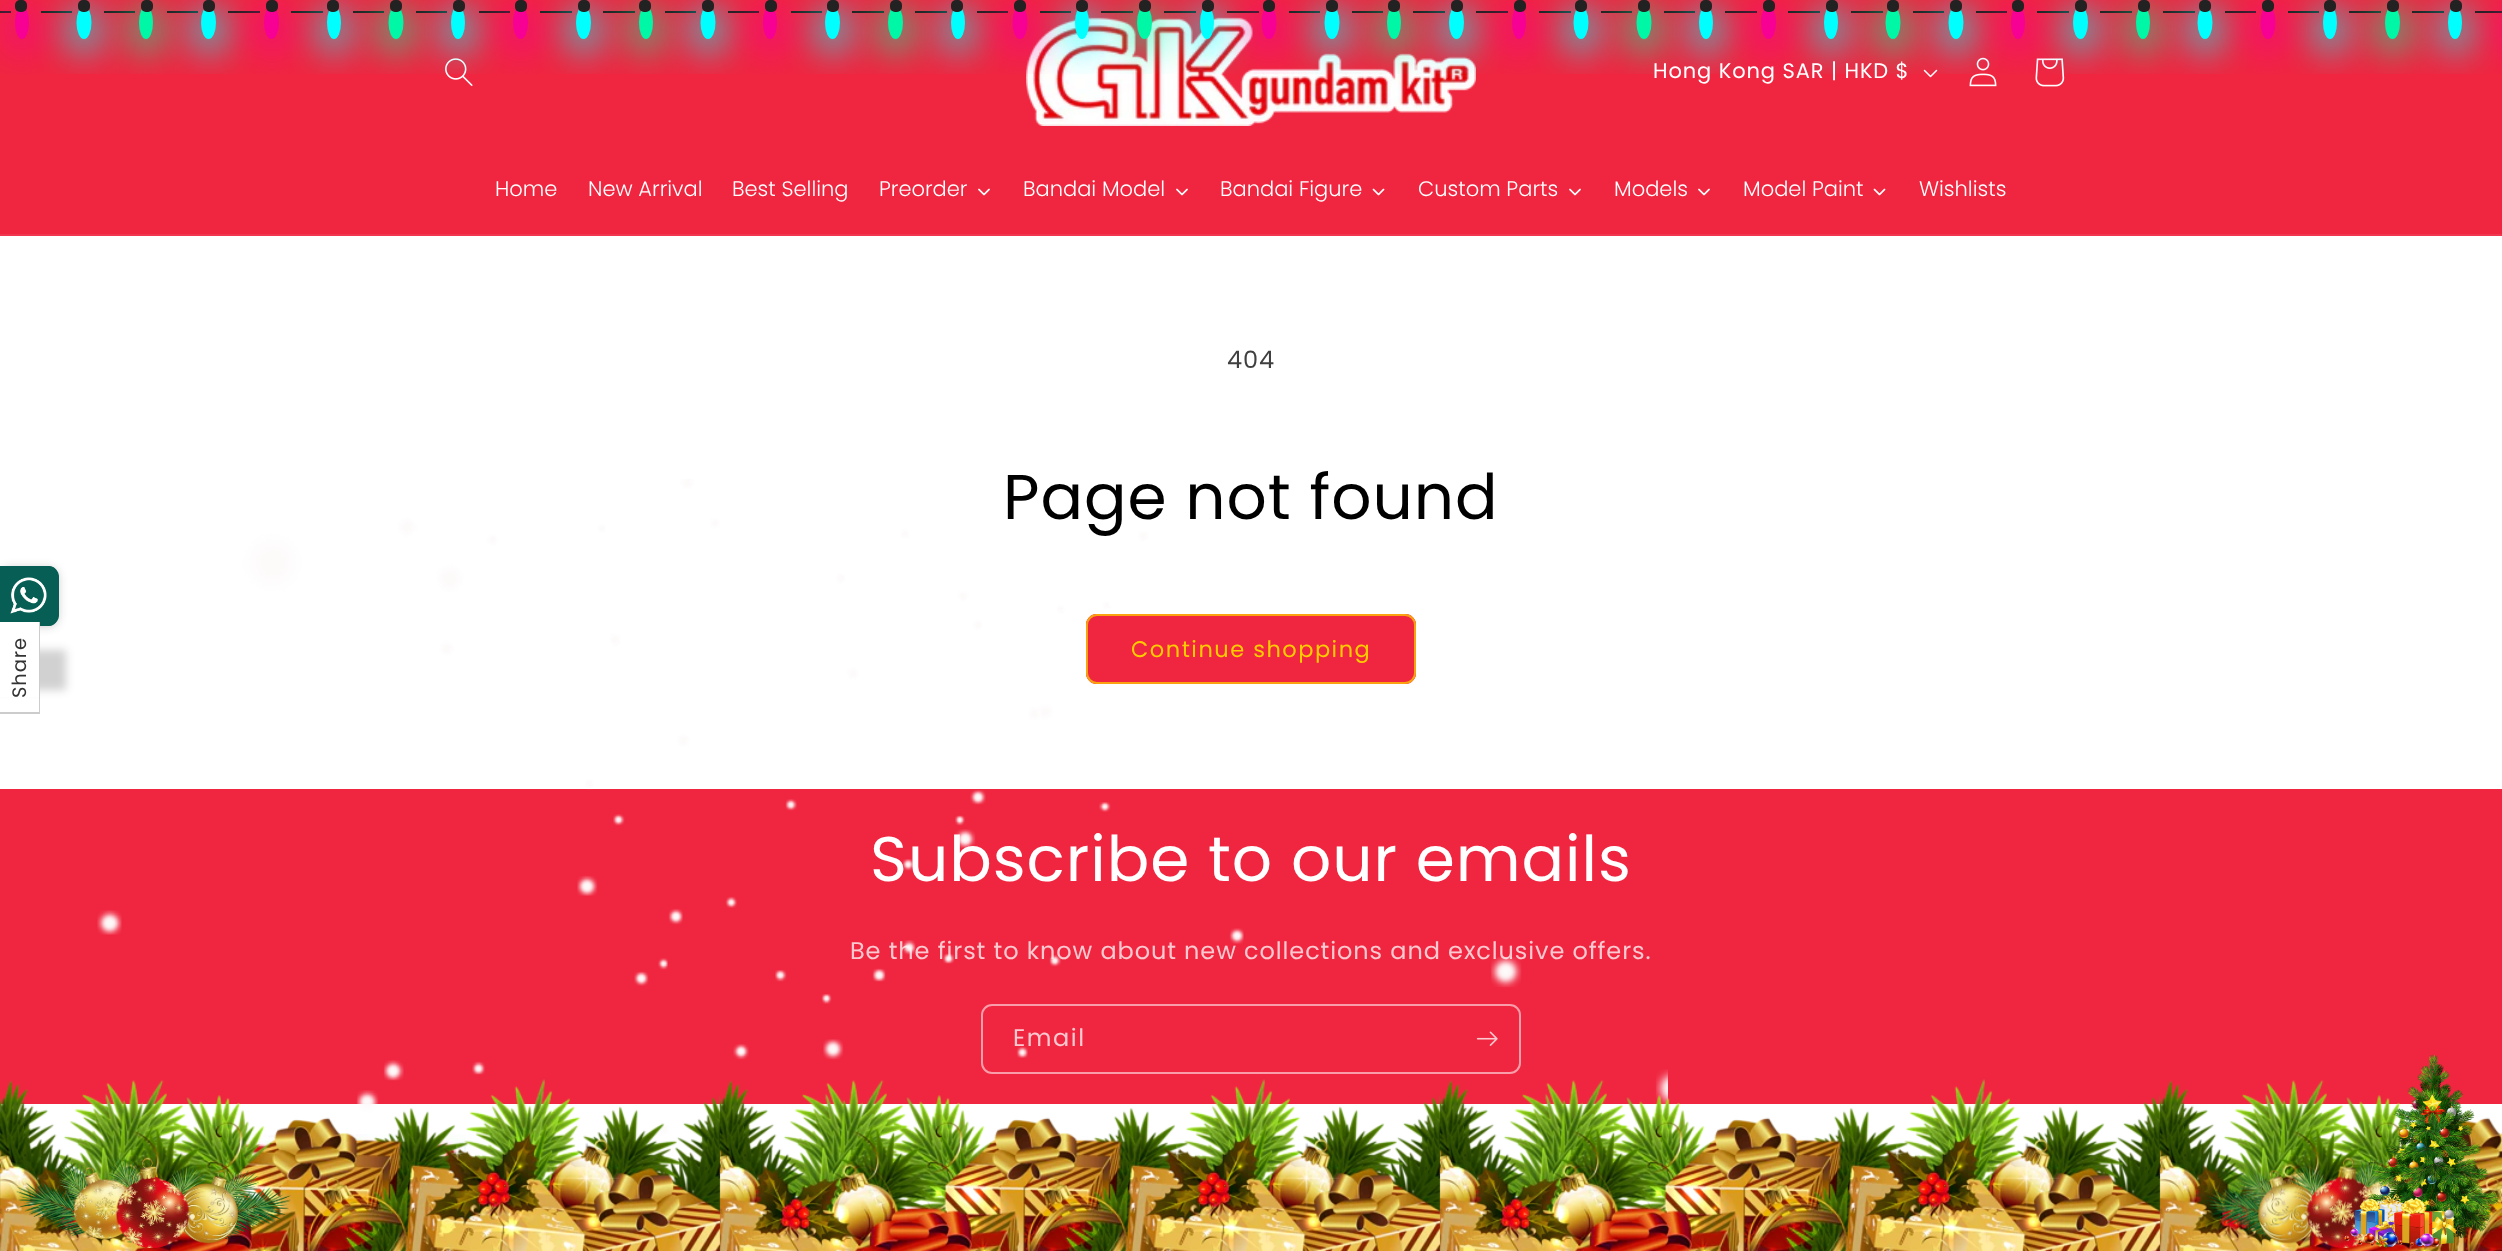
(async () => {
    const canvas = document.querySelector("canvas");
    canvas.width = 2502;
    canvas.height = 1251;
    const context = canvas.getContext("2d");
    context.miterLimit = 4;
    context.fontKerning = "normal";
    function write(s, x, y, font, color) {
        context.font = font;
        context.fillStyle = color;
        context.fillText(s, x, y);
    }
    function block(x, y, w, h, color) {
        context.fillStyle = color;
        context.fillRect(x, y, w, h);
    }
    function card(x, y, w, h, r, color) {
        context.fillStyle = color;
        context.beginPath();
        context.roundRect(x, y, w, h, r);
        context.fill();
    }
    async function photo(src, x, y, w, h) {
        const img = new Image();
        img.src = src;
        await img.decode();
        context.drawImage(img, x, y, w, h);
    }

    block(0, 0, 2502, 1251, "rgb(255, 255, 255)");
    block(0, 0, 2502, 234, "rgb(240, 38, 64)");
    block(0, 11, 11, 2, "rgb(34, 34, 34)");
    context.save();
    context.beginPath();
    context.rect(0, 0, 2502, 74);
    context.clip();
    context.fillStyle = "rgb(247, 0, 148)";
    context.filter = "blur(18px)";
    context.beginPath();
    context.roundRect(11, 9, 22, 42, 11);
    context.fill();
    context.filter = "none";
    context.restore();
    context.fillStyle = "rgb(247, 0, 148)";
    context.beginPath();
    context.ellipse(22, 22.5, 7, 16.5, 0, 0, Math.PI * 2);
    context.fill();
    card(15, 0, 12, 12, 5, "rgb(34, 34, 34)");
    block(41, 11, 31, 2, "rgb(34, 34, 34)");
    context.save();
    context.beginPath();
    context.rect(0, 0, 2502, 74);
    context.clip();
    context.fillStyle = "rgb(0, 255, 255)";
    context.filter = "blur(18px)";
    context.beginPath();
    context.roundRect(72, 9, 24, 42, 12);
    context.fill();
    context.filter = "none";
    context.restore();
    context.fillStyle = "rgb(0, 255, 255)";
    context.beginPath();
    context.ellipse(84, 22.5, 7.5, 16.5, 0, 0, Math.PI * 2);
    context.fill();
    card(78, 0, 12, 12, 5, "rgb(34, 34, 34)");
    block(104, 11, 31, 2, "rgb(34, 34, 34)");
    context.save();
    context.beginPath();
    context.rect(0, 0, 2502, 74);
    context.clip();
    context.fillStyle = "rgb(0, 247, 165)";
    context.filter = "blur(18px)";
    context.beginPath();
    context.roundRect(135, 9, 23, 42, 11.5);
    context.fill();
    context.filter = "none";
    context.restore();
    context.fillStyle = "rgb(0, 247, 165)";
    context.beginPath();
    context.ellipse(146, 22.5, 7, 16.5, 0, 0, Math.PI * 2);
    context.fill();
    card(141, 0, 12, 12, 5, "rgb(34, 34, 34)");
    block(167, 11, 31, 2, "rgb(34, 34, 34)");
    context.save();
    context.beginPath();
    context.rect(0, 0, 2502, 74);
    context.clip();
    context.fillStyle = "rgb(0, 255, 255)";
    context.filter = "blur(18px)";
    context.beginPath();
    context.roundRect(197, 9, 24, 42, 12);
    context.fill();
    context.filter = "none";
    context.restore();
    context.fillStyle = "rgb(0, 255, 255)";
    context.beginPath();
    context.ellipse(208.5, 22.5, 7.5, 16.5, 0, 0, Math.PI * 2);
    context.fill();
    card(203, 0, 12, 12, 5, "rgb(34, 34, 34)");
    block(228, 11, 32, 2, "rgb(34, 34, 34)");
    context.save();
    context.beginPath();
    context.rect(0, 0, 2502, 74);
    context.clip();
    context.fillStyle = "rgb(247, 0, 148)";
    context.filter = "blur(18px)";
    context.beginPath();
    context.roundRect(260, 9, 24, 42, 12);
    context.fill();
    context.filter = "none";
    context.restore();
    context.fillStyle = "rgb(247, 0, 148)";
    context.beginPath();
    context.ellipse(271.5, 22.5, 7.5, 16.5, 0, 0, Math.PI * 2);
    context.fill();
    card(266, 0, 12, 12, 5, "rgb(34, 34, 34)");
    block(291, 11, 32, 2, "rgb(34, 34, 34)");
    context.save();
    context.beginPath();
    context.rect(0, 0, 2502, 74);
    context.clip();
    context.fillStyle = "rgb(0, 255, 255)";
    context.filter = "blur(18px)";
    context.beginPath();
    context.roundRect(323, 9, 22, 42, 11);
    context.fill();
    context.filter = "none";
    context.restore();
    context.fillStyle = "rgb(0, 255, 255)";
    context.beginPath();
    context.ellipse(334, 22.5, 7, 16.5, 0, 0, Math.PI * 2);
    context.fill();
    card(327, 0, 12, 12, 5, "rgb(34, 34, 34)");
    block(353, 11, 31, 2, "rgb(34, 34, 34)");
    await photo("media/1.png", 445, 58, 28, 28);
    context.save();
    context.beginPath();
    context.rect(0, 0, 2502, 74);
    context.clip();
    context.fillStyle = "rgb(0, 247, 165)";
    context.filter = "blur(18px)";
    context.beginPath();
    context.roundRect(384, 9, 24, 42, 12);
    context.fill();
    context.filter = "none";
    context.restore();
    context.fillStyle = "rgb(0, 247, 165)";
    context.beginPath();
    context.ellipse(396, 22.5, 7.5, 16.5, 0, 0, Math.PI * 2);
    context.fill();
    card(390, 0, 12, 12, 5, "rgb(34, 34, 34)");
    block(416, 11, 31, 2, "rgb(34, 34, 34)");
    context.save();
    context.beginPath();
    context.rect(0, 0, 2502, 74);
    context.clip();
    context.fillStyle = "rgb(0, 255, 255)";
    context.filter = "blur(18px)";
    context.beginPath();
    context.roundRect(447, 9, 23, 42, 11.5);
    context.fill();
    context.filter = "none";
    context.restore();
    context.fillStyle = "rgb(0, 255, 255)";
    context.beginPath();
    context.ellipse(458, 22.5, 7, 16.5, 0, 0, Math.PI * 2);
    context.fill();
    card(453, 0, 12, 12, 5, "rgb(34, 34, 34)");
    block(479, 11, 31, 2, "rgb(34, 34, 34)");
    context.save();
    context.beginPath();
    context.rect(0, 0, 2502, 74);
    context.clip();
    context.fillStyle = "rgb(247, 0, 148)";
    context.filter = "blur(18px)";
    context.beginPath();
    context.roundRect(509, 9, 24, 42, 12);
    context.fill();
    context.filter = "none";
    context.restore();
    context.fillStyle = "rgb(247, 0, 148)";
    context.beginPath();
    context.ellipse(520.5, 22.5, 7.5, 16.5, 0, 0, Math.PI * 2);
    context.fill();
    card(515, 0, 12, 12, 5, "rgb(34, 34, 34)");
    block(540, 11, 32, 2, "rgb(34, 34, 34)");
    context.save();
    context.beginPath();
    context.rect(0, 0, 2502, 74);
    context.clip();
    context.fillStyle = "rgb(0, 255, 255)";
    context.filter = "blur(18px)";
    context.beginPath();
    context.roundRect(572, 9, 24, 42, 12);
    context.fill();
    context.filter = "none";
    context.restore();
    context.fillStyle = "rgb(0, 255, 255)";
    context.beginPath();
    context.ellipse(583.5, 22.5, 7.5, 16.5, 0, 0, Math.PI * 2);
    context.fill();
    card(578, 0, 12, 12, 5, "rgb(34, 34, 34)");
    block(603, 11, 32, 2, "rgb(34, 34, 34)");
    context.save();
    context.beginPath();
    context.rect(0, 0, 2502, 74);
    context.clip();
    context.fillStyle = "rgb(0, 247, 165)";
    context.filter = "blur(18px)";
    context.beginPath();
    context.roundRect(635, 9, 22, 42, 11);
    context.fill();
    context.filter = "none";
    context.restore();
    context.fillStyle = "rgb(0, 247, 165)";
    context.beginPath();
    context.ellipse(646, 22.5, 7, 16.5, 0, 0, Math.PI * 2);
    context.fill();
    card(639, 0, 12, 12, 5, "rgb(34, 34, 34)");
    block(665, 11, 31, 2, "rgb(34, 34, 34)");
    context.save();
    context.beginPath();
    context.rect(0, 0, 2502, 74);
    context.clip();
    context.fillStyle = "rgb(0, 255, 255)";
    context.filter = "blur(18px)";
    context.beginPath();
    context.roundRect(696, 9, 24, 42, 12);
    context.fill();
    context.filter = "none";
    context.restore();
    context.fillStyle = "rgb(0, 255, 255)";
    context.beginPath();
    context.ellipse(708, 22.5, 7.5, 16.5, 0, 0, Math.PI * 2);
    context.fill();
    card(702, 0, 12, 12, 5, "rgb(34, 34, 34)");
    block(728, 11, 31, 2, "rgb(34, 34, 34)");
    context.save();
    context.beginPath();
    context.rect(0, 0, 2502, 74);
    context.clip();
    context.fillStyle = "rgb(247, 0, 148)";
    context.filter = "blur(18px)";
    context.beginPath();
    context.roundRect(759, 9, 23, 42, 11.5);
    context.fill();
    context.filter = "none";
    context.restore();
    context.fillStyle = "rgb(247, 0, 148)";
    context.beginPath();
    context.ellipse(770, 22.5, 7, 16.5, 0, 0, Math.PI * 2);
    context.fill();
    card(765, 0, 12, 12, 5, "rgb(34, 34, 34)");
    block(791, 11, 31, 2, "rgb(34, 34, 34)");
    context.save();
    context.beginPath();
    context.rect(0, 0, 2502, 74);
    context.clip();
    context.fillStyle = "rgb(0, 255, 255)";
    context.filter = "blur(18px)";
    context.beginPath();
    context.roundRect(821, 9, 24, 42, 12);
    context.fill();
    context.filter = "none";
    context.restore();
    context.fillStyle = "rgb(0, 255, 255)";
    context.beginPath();
    context.ellipse(832.5, 22.5, 7.5, 16.5, 0, 0, Math.PI * 2);
    context.fill();
    card(827, 0, 12, 12, 5, "rgb(34, 34, 34)");
    block(852, 11, 32, 2, "rgb(34, 34, 34)");
    context.save();
    context.beginPath();
    context.rect(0, 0, 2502, 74);
    context.clip();
    context.fillStyle = "rgb(0, 247, 165)";
    context.filter = "blur(18px)";
    context.beginPath();
    context.roundRect(884, 9, 24, 42, 12);
    context.fill();
    context.filter = "none";
    context.restore();
    context.fillStyle = "rgb(0, 247, 165)";
    context.beginPath();
    context.ellipse(895.5, 22.5, 7.5, 16.5, 0, 0, Math.PI * 2);
    context.fill();
    card(890, 0, 12, 12, 5, "rgb(34, 34, 34)");
    block(915, 11, 32, 2, "rgb(34, 34, 34)");
    context.save();
    context.beginPath();
    context.rect(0, 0, 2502, 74);
    context.clip();
    context.fillStyle = "rgb(0, 255, 255)";
    context.filter = "blur(18px)";
    context.beginPath();
    context.roundRect(947, 9, 22, 42, 11);
    context.fill();
    context.filter = "none";
    context.restore();
    context.fillStyle = "rgb(0, 255, 255)";
    context.beginPath();
    context.ellipse(958, 22.5, 7, 16.5, 0, 0, Math.PI * 2);
    context.fill();
    card(951, 0, 12, 12, 5, "rgb(34, 34, 34)");
    block(977, 11, 31, 2, "rgb(34, 34, 34)");
    await photo("media/2.png", 1026, 17, 450, 109);
    context.save();
    context.beginPath();
    context.rect(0, 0, 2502, 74);
    context.clip();
    context.fillStyle = "rgb(247, 0, 148)";
    context.filter = "blur(18px)";
    context.beginPath();
    context.roundRect(1008, 9, 24, 42, 12);
    context.fill();
    context.filter = "none";
    context.restore();
    context.fillStyle = "rgb(247, 0, 148)";
    context.beginPath();
    context.ellipse(1020, 22.5, 7.5, 16.5, 0, 0, Math.PI * 2);
    context.fill();
    card(1014, 0, 12, 12, 5, "rgb(34, 34, 34)");
    block(1040, 11, 31, 2, "rgb(34, 34, 34)");
    context.save();
    context.beginPath();
    context.rect(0, 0, 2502, 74);
    context.clip();
    context.fillStyle = "rgb(0, 255, 255)";
    context.filter = "blur(18px)";
    context.beginPath();
    context.roundRect(1071, 9, 23, 42, 11.5);
    context.fill();
    context.filter = "none";
    context.restore();
    context.fillStyle = "rgb(0, 255, 255)";
    context.beginPath();
    context.ellipse(1082, 22.5, 7, 16.5, 0, 0, Math.PI * 2);
    context.fill();
    card(1076, 0, 12, 12, 5, "rgb(34, 34, 34)");
    block(1101, 11, 32, 2, "rgb(34, 34, 34)");
    context.save();
    context.beginPath();
    context.rect(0, 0, 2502, 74);
    context.clip();
    context.fillStyle = "rgb(0, 247, 165)";
    context.filter = "blur(18px)";
    context.beginPath();
    context.roundRect(1133, 9, 24, 42, 12);
    context.fill();
    context.filter = "none";
    context.restore();
    context.fillStyle = "rgb(0, 247, 165)";
    context.beginPath();
    context.ellipse(1144.5, 22.5, 7.5, 16.5, 0, 0, Math.PI * 2);
    context.fill();
    card(1139, 0, 12, 12, 5, "rgb(34, 34, 34)");
    block(1164, 11, 32, 2, "rgb(34, 34, 34)");
    context.save();
    context.beginPath();
    context.rect(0, 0, 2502, 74);
    context.clip();
    context.fillStyle = "rgb(0, 255, 255)";
    context.filter = "blur(18px)";
    context.beginPath();
    context.roundRect(1196, 9, 22, 42, 11);
    context.fill();
    context.filter = "none";
    context.restore();
    context.fillStyle = "rgb(0, 255, 255)";
    context.beginPath();
    context.ellipse(1207, 22.5, 7, 16.5, 0, 0, Math.PI * 2);
    context.fill();
    card(1202, 0, 12, 12, 5, "rgb(34, 34, 34)");
    block(1227, 11, 32, 2, "rgb(34, 34, 34)");
    context.save();
    context.beginPath();
    context.rect(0, 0, 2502, 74);
    context.clip();
    context.fillStyle = "rgb(247, 0, 148)";
    context.filter = "blur(18px)";
    context.beginPath();
    context.roundRect(1257, 9, 24, 42, 12);
    context.fill();
    context.filter = "none";
    context.restore();
    context.fillStyle = "rgb(247, 0, 148)";
    context.beginPath();
    context.ellipse(1269, 22.5, 7.5, 16.5, 0, 0, Math.PI * 2);
    context.fill();
    card(1263, 0, 12, 12, 5, "rgb(34, 34, 34)");
    block(1289, 11, 31, 2, "rgb(34, 34, 34)");
    context.save();
    context.beginPath();
    context.rect(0, 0, 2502, 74);
    context.clip();
    context.fillStyle = "rgb(0, 255, 255)";
    context.filter = "blur(18px)";
    context.beginPath();
    context.roundRect(1320, 9, 24, 42, 12);
    context.fill();
    context.filter = "none";
    context.restore();
    context.fillStyle = "rgb(0, 255, 255)";
    context.beginPath();
    context.ellipse(1332, 22.5, 7.5, 16.5, 0, 0, Math.PI * 2);
    context.fill();
    card(1326, 0, 12, 12, 5, "rgb(34, 34, 34)");
    block(1352, 11, 31, 2, "rgb(34, 34, 34)");
    context.save();
    context.beginPath();
    context.rect(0, 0, 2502, 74);
    context.clip();
    context.fillStyle = "rgb(0, 247, 165)";
    context.filter = "blur(18px)";
    context.beginPath();
    context.roundRect(1383, 9, 23, 42, 11.5);
    context.fill();
    context.filter = "none";
    context.restore();
    context.fillStyle = "rgb(0, 247, 165)";
    context.beginPath();
    context.ellipse(1394, 22.5, 7, 16.5, 0, 0, Math.PI * 2);
    context.fill();
    card(1388, 0, 12, 12, 5, "rgb(34, 34, 34)");
    block(1413, 11, 32, 2, "rgb(34, 34, 34)");
    context.save();
    context.beginPath();
    context.rect(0, 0, 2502, 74);
    context.clip();
    context.fillStyle = "rgb(0, 255, 255)";
    context.filter = "blur(18px)";
    context.beginPath();
    context.roundRect(1445, 9, 24, 42, 12);
    context.fill();
    context.filter = "none";
    context.restore();
    context.fillStyle = "rgb(0, 255, 255)";
    context.beginPath();
    context.ellipse(1456.5, 22.5, 7.5, 16.5, 0, 0, Math.PI * 2);
    context.fill();
    card(1451, 0, 12, 12, 5, "rgb(34, 34, 34)");
    block(1476, 11, 32, 2, "rgb(34, 34, 34)");
    context.save();
    context.beginPath();
    context.rect(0, 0, 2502, 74);
    context.clip();
    context.fillStyle = "rgb(247, 0, 148)";
    context.filter = "blur(18px)";
    context.beginPath();
    context.roundRect(1508, 9, 22, 42, 11);
    context.fill();
    context.filter = "none";
    context.restore();
    context.fillStyle = "rgb(247, 0, 148)";
    context.beginPath();
    context.ellipse(1519, 22.5, 7, 16.5, 0, 0, Math.PI * 2);
    context.fill();
    card(1514, 0, 12, 12, 5, "rgb(34, 34, 34)");
    block(1539, 11, 32, 2, "rgb(34, 34, 34)");
    context.save();
    context.beginPath();
    context.rect(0, 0, 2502, 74);
    context.clip();
    context.fillStyle = "rgb(0, 255, 255)";
    context.filter = "blur(18px)";
    context.beginPath();
    context.roundRect(1569, 9, 24, 42, 12);
    context.fill();
    context.filter = "none";
    context.restore();
    context.fillStyle = "rgb(0, 255, 255)";
    context.beginPath();
    context.ellipse(1581, 22.5, 7.5, 16.5, 0, 0, Math.PI * 2);
    context.fill();
    card(1575, 0, 12, 12, 5, "rgb(34, 34, 34)");
    block(1601, 11, 31, 2, "rgb(34, 34, 34)");
    context.save();
    context.beginPath();
    context.rect(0, 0, 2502, 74);
    context.clip();
    context.fillStyle = "rgb(0, 247, 165)";
    context.filter = "blur(18px)";
    context.beginPath();
    context.roundRect(1632, 9, 24, 42, 12);
    context.fill();
    context.filter = "none";
    context.restore();
    context.fillStyle = "rgb(0, 247, 165)";
    context.beginPath();
    context.ellipse(1644, 22.5, 7.5, 16.5, 0, 0, Math.PI * 2);
    context.fill();
    card(1638, 0, 12, 12, 5, "rgb(34, 34, 34)");
    block(1664, 11, 31, 2, "rgb(34, 34, 34)");
    context.save();
    context.beginPath();
    context.rect(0, 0, 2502, 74);
    context.clip();
    context.fillStyle = "rgb(0, 255, 255)";
    context.filter = "blur(18px)";
    context.beginPath();
    context.roundRect(1695, 9, 23, 42, 11.5);
    context.fill();
    context.filter = "none";
    context.restore();
    context.fillStyle = "rgb(0, 255, 255)";
    context.beginPath();
    context.ellipse(1706, 22.5, 7, 16.5, 0, 0, Math.PI * 2);
    context.fill();
    card(1700, 0, 12, 12, 5, "rgb(34, 34, 34)");
    block(1725, 11, 32, 2, "rgb(34, 34, 34)");
    context.save();
    context.beginPath();
    context.rect(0, 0, 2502, 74);
    context.clip();
    context.fillStyle = "rgb(247, 0, 148)";
    context.filter = "blur(18px)";
    context.beginPath();
    context.roundRect(1757, 9, 24, 42, 12);
    context.fill();
    context.filter = "none";
    context.restore();
    context.fillStyle = "rgb(247, 0, 148)";
    context.beginPath();
    context.ellipse(1768.5, 22.5, 7.5, 16.5, 0, 0, Math.PI * 2);
    context.fill();
    card(1763, 0, 12, 12, 5, "rgb(34, 34, 34)");
    block(1788, 11, 32, 2, "rgb(34, 34, 34)");
    context.save();
    context.beginPath();
    context.rect(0, 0, 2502, 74);
    context.clip();
    context.fillStyle = "rgb(0, 255, 255)";
    context.filter = "blur(18px)";
    context.beginPath();
    context.roundRect(1820, 9, 22, 42, 11);
    context.fill();
    context.filter = "none";
    context.restore();
    context.fillStyle = "rgb(0, 255, 255)";
    context.beginPath();
    context.ellipse(1831, 22.5, 7, 16.5, 0, 0, Math.PI * 2);
    context.fill();
    card(1826, 0, 12, 12, 5, "rgb(34, 34, 34)");
    block(1851, 11, 32, 2, "rgb(34, 34, 34)");
    await photo("media/3.png", 1923, 69, 15, 9);
    context.save();
    context.beginPath();
    context.rect(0, 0, 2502, 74);
    context.clip();
    context.fillStyle = "rgb(0, 247, 165)";
    context.filter = "blur(18px)";
    context.beginPath();
    context.roundRect(1881, 9, 24, 42, 12);
    context.fill();
    context.filter = "none";
    context.restore();
    context.fillStyle = "rgb(0, 247, 165)";
    context.beginPath();
    context.ellipse(1893, 22.5, 7.5, 16.5, 0, 0, Math.PI * 2);
    context.fill();
    card(1887, 0, 12, 12, 5, "rgb(34, 34, 34)");
    block(1913, 11, 31, 2, "rgb(34, 34, 34)");
    await photo("media/4.png", 1969, 57, 28, 30);
    context.save();
    context.beginPath();
    context.rect(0, 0, 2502, 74);
    context.clip();
    context.fillStyle = "rgb(0, 255, 255)";
    context.filter = "blur(18px)";
    context.beginPath();
    context.roundRect(1944, 9, 24, 42, 12);
    context.fill();
    context.filter = "none";
    context.restore();
    context.fillStyle = "rgb(0, 255, 255)";
    context.beginPath();
    context.ellipse(1956, 22.5, 7.5, 16.5, 0, 0, Math.PI * 2);
    context.fill();
    card(1950, 0, 12, 12, 5, "rgb(34, 34, 34)");
    block(1976, 11, 31, 2, "rgb(34, 34, 34)");
    await photo("media/5.png", 2035, 58, 30, 29);
    context.save();
    context.beginPath();
    context.rect(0, 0, 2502, 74);
    context.clip();
    context.fillStyle = "rgb(247, 0, 148)";
    context.filter = "blur(18px)";
    context.beginPath();
    context.roundRect(2007, 9, 23, 42, 11.5);
    context.fill();
    context.filter = "none";
    context.restore();
    context.fillStyle = "rgb(247, 0, 148)";
    context.beginPath();
    context.ellipse(2018, 22.5, 7, 16.5, 0, 0, Math.PI * 2);
    context.fill();
    card(2012, 0, 12, 12, 5, "rgb(34, 34, 34)");
    block(2037, 11, 32, 2, "rgb(34, 34, 34)");
    context.save();
    context.beginPath();
    context.rect(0, 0, 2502, 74);
    context.clip();
    context.fillStyle = "rgb(0, 255, 255)";
    context.filter = "blur(18px)";
    context.beginPath();
    context.roundRect(2069, 9, 24, 42, 12);
    context.fill();
    context.filter = "none";
    context.restore();
    context.fillStyle = "rgb(0, 255, 255)";
    context.beginPath();
    context.ellipse(2080.5, 22.5, 7.5, 16.5, 0, 0, Math.PI * 2);
    context.fill();
    card(2075, 0, 12, 12, 5, "rgb(34, 34, 34)");
    block(2100, 11, 32, 2, "rgb(34, 34, 34)");
    context.save();
    context.beginPath();
    context.rect(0, 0, 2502, 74);
    context.clip();
    context.fillStyle = "rgb(0, 247, 165)";
    context.filter = "blur(18px)";
    context.beginPath();
    context.roundRect(2132, 9, 22, 42, 11);
    context.fill();
    context.filter = "none";
    context.restore();
    context.fillStyle = "rgb(0, 247, 165)";
    context.beginPath();
    context.ellipse(2143, 22.5, 7, 16.5, 0, 0, Math.PI * 2);
    context.fill();
    card(2138, 0, 12, 12, 5, "rgb(34, 34, 34)");
    block(2163, 11, 32, 2, "rgb(34, 34, 34)");
    context.save();
    context.beginPath();
    context.rect(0, 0, 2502, 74);
    context.clip();
    context.fillStyle = "rgb(0, 255, 255)";
    context.filter = "blur(18px)";
    context.beginPath();
    context.roundRect(2193, 9, 24, 42, 12);
    context.fill();
    context.filter = "none";
    context.restore();
    context.fillStyle = "rgb(0, 255, 255)";
    context.beginPath();
    context.ellipse(2205, 22.5, 7.5, 16.5, 0, 0, Math.PI * 2);
    context.fill();
    card(2199, 0, 12, 12, 5, "rgb(34, 34, 34)");
    block(2225, 11, 31, 2, "rgb(34, 34, 34)");
    context.save();
    context.beginPath();
    context.rect(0, 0, 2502, 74);
    context.clip();
    context.fillStyle = "rgb(247, 0, 148)";
    context.filter = "blur(18px)";
    context.beginPath();
    context.roundRect(2256, 9, 24, 42, 12);
    context.fill();
    context.filter = "none";
    context.restore();
    context.fillStyle = "rgb(247, 0, 148)";
    context.beginPath();
    context.ellipse(2268, 22.5, 7.5, 16.5, 0, 0, Math.PI * 2);
    context.fill();
    card(2262, 0, 12, 12, 5, "rgb(34, 34, 34)");
    block(2288, 11, 31, 2, "rgb(34, 34, 34)");
    context.save();
    context.beginPath();
    context.rect(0, 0, 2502, 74);
    context.clip();
    context.fillStyle = "rgb(0, 255, 255)";
    context.filter = "blur(18px)";
    context.beginPath();
    context.roundRect(2319, 9, 23, 42, 11.5);
    context.fill();
    context.filter = "none";
    context.restore();
    context.fillStyle = "rgb(0, 255, 255)";
    context.beginPath();
    context.ellipse(2330, 22.5, 7, 16.5, 0, 0, Math.PI * 2);
    context.fill();
    card(2324, 0, 12, 12, 5, "rgb(34, 34, 34)");
    block(2349, 11, 32, 2, "rgb(34, 34, 34)");
    context.save();
    context.beginPath();
    context.rect(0, 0, 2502, 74);
    context.clip();
    context.fillStyle = "rgb(0, 247, 165)";
    context.filter = "blur(18px)";
    context.beginPath();
    context.roundRect(2381, 9, 24, 42, 12);
    context.fill();
    context.filter = "none";
    context.restore();
    context.fillStyle = "rgb(0, 247, 165)";
    context.beginPath();
    context.ellipse(2392.5, 22.5, 7.5, 16.5, 0, 0, Math.PI * 2);
    context.fill();
    card(2387, 0, 12, 12, 5, "rgb(34, 34, 34)");
    block(2412, 11, 32, 2, "rgb(34, 34, 34)");
    context.save();
    context.beginPath();
    context.rect(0, 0, 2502, 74);
    context.clip();
    context.fillStyle = "rgb(0, 255, 255)";
    context.filter = "blur(18px)";
    context.beginPath();
    context.roundRect(2444, 9, 22, 42, 11);
    context.fill();
    context.filter = "none";
    context.restore();
    context.fillStyle = "rgb(0, 255, 255)";
    context.beginPath();
    context.ellipse(2455, 22.5, 7, 16.5, 0, 0, Math.PI * 2);
    context.fill();
    card(2450, 0, 12, 12, 5, "rgb(34, 34, 34)");
    block(2475, 11, 27, 2, "rgb(34, 34, 34)");
    context.save();
    context.beginPath();
    context.rect(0, 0, 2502, 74);
    context.clip();
    context.fillStyle = "rgb(247, 0, 148)";
    context.filter = "blur(18px)";
    context.beginPath();
    context.roundRect(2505, 9, 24, 42, 12);
    context.fill();
    context.filter = "none";
    context.restore();
    block(0, 234, 2502, 2, "rgb(241, 55, 79)");
    context.letterSpacing = "0.9px";
    write("Hong Kong SAR | HKD $", 1653, 78, "21px Poppins", "rgb(255, 255, 255)");
    context.letterSpacing = "0px";
    write("Home", 495, 196, "300 21px Poppins", "rgb(255, 255, 255)");
    write("New Arrival", 588, 196, "300 21px Poppins", "rgb(255, 255, 255)");
    write("Best Selling", 732, 196, "300 21px Poppins", "rgb(255, 255, 255)");
    write("Preorder", 879, 196, "300 21px Poppins", "rgb(255, 255, 255)");
    await photo("media/6.png", 978, 188, 12, 8);
    write("Bandai Model", 1023, 196, "300 21px Poppins", "rgb(255, 255, 255)");
    await photo("media/6.png", 1176, 188, 12, 8);
    write("Bandai Figure", 1220, 196, "300 21px Poppins", "rgb(255, 255, 255)");
    await photo("media/7.png", 1372, 188, 13, 8);
    write("Custom Parts", 1418, 196, "300 21px Poppins", "rgb(255, 255, 255)");
    await photo("media/6.png", 1569, 188, 12, 8);
    write("Models", 1614, 196, "300 21px Poppins", "rgb(255, 255, 255)");
    await photo("media/6.png", 1698, 188, 12, 8);
    write("Model Paint", 1743, 196, "300 21px Poppins", "rgb(255, 255, 255)");
    await photo("media/7.png", 1873, 188, 13, 8);
    write("Wishlists", 1919, 196, "300 21px Poppins", "rgb(255, 255, 255)");
    context.letterSpacing = "0.9px";
    write("404", 1227, 368, "24px Poppins", "rgb(64, 64, 64)");
    context.letterSpacing = "0.95px";
    write("Page not found", 1003, 519, "63px Poppins", "rgb(0, 0, 0)");
    card(1086, 614, 330, 70, 11, "rgb(240, 38, 64)");
    context.beginPath();
    context.roundRect(1087, 615, 328, 68, 10);
    context.strokeStyle = "rgb(240, 38, 64)";
    context.lineWidth = 2;
    context.stroke();
    context.beginPath();
    context.roundRect(1087, 615, 328, 68, 10);
    context.strokeStyle = "rgba(255, 204, 0, 0.75)";
    context.stroke();
    context.letterSpacing = "1.5px";
    write("Continue shopping", 1131, 657, "22.5px Poppins", "rgb(255, 204, 0)");
    context.fillStyle = "rgba(27, 27, 27, 0.2)";
    context.filter = "blur(4.5px)";
    context.beginPath();
    context.roundRect(0, 567, 59, 60, 11);
    context.fill();
    context.filter = "none";
    context.fillStyle = "rgb(7, 94, 84)";
    context.beginPath();
    context.roundRect(0, 566, 59, 60, [0, 11, 11, 0]);
    context.fill();
    context.beginPath();
    context.moveTo(0, 566);
    context.lineTo(48, 566);
    context.bezierCurveTo(54, 566, 58, 570, 58, 576);
    context.lineTo(58, 615);
    context.bezierCurveTo(58, 621, 54, 626, 48, 626);
    context.lineTo(0, 626);
    context.closePath();
    context.moveTo(0, 567);
    context.lineTo(48, 567);
    context.bezierCurveTo(53, 567, 57, 571, 57, 576);
    context.lineTo(57, 615);
    context.bezierCurveTo(57, 620, 53, 624, 48, 624);
    context.lineTo(0, 624);
    context.closePath();
    context.fill("evenodd");
    await photo("media/8.png", 10, 577, 37, 37);
    context.fillStyle = "rgba(27, 27, 27, 0.2)";
    context.filter = "blur(4.5px)";
    context.beginPath();
    context.rect(-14, 650, 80, 40);
    context.fill();
    context.filter = "none";
    block(0, 622, 39, 75, "rgb(255, 255, 255)");
    block(39, 622, 1, 92, "rgb(204, 204, 204)");
    block(0, 712, 40, 2, "rgb(204, 204, 204)");
    context.letterSpacing = "0.9px";
    context.font = "19.5px Poppins";
    context.fillStyle = "rgb(51, 51, 51)";
    context.save();
    context.translate(26, 698);
    context.rotate(-90 * Math.PI / 180);
    context.fillText("Share", 0, 0);
    context.restore();
    block(0, 789, 2502, 315, "rgb(240, 38, 64)");
    context.letterSpacing = "0.95px";
    write("Subscribe to our emails", 870, 881, "63px Poppins", "rgb(255, 255, 255)");
    context.letterSpacing = "0.9px";
    write("Be the first to know about new collections and exclusive offers.", 850, 959, "24px Poppins", "rgb(251, 201, 207)");
    context.beginPath();
    context.roundRect(982, 1005, 538, 68, 10);
    context.strokeStyle = "rgb(248, 157, 169)";
    context.stroke();
    context.letterSpacing = "1.5px";
    write("Email", 1013, 1046, "24px Poppins", "rgb(251, 201, 207)");
    await photo("media/10.png", 1476, 1031, 22, 15);
    await photo("media/14.png", 159, 1134, 612, 117);
    await photo("media/9.png", 97, 479, 1571, 668);
    await photo("media/12.png", 0, 1079, 2502, 172);
    await photo("media/15.png", 2206, 1157, 273, 91);
    await photo("media/11.png", 2344, 1054, 155, 194);
    await photo("media/13.png", 16, 1157, 275, 91);
})();
